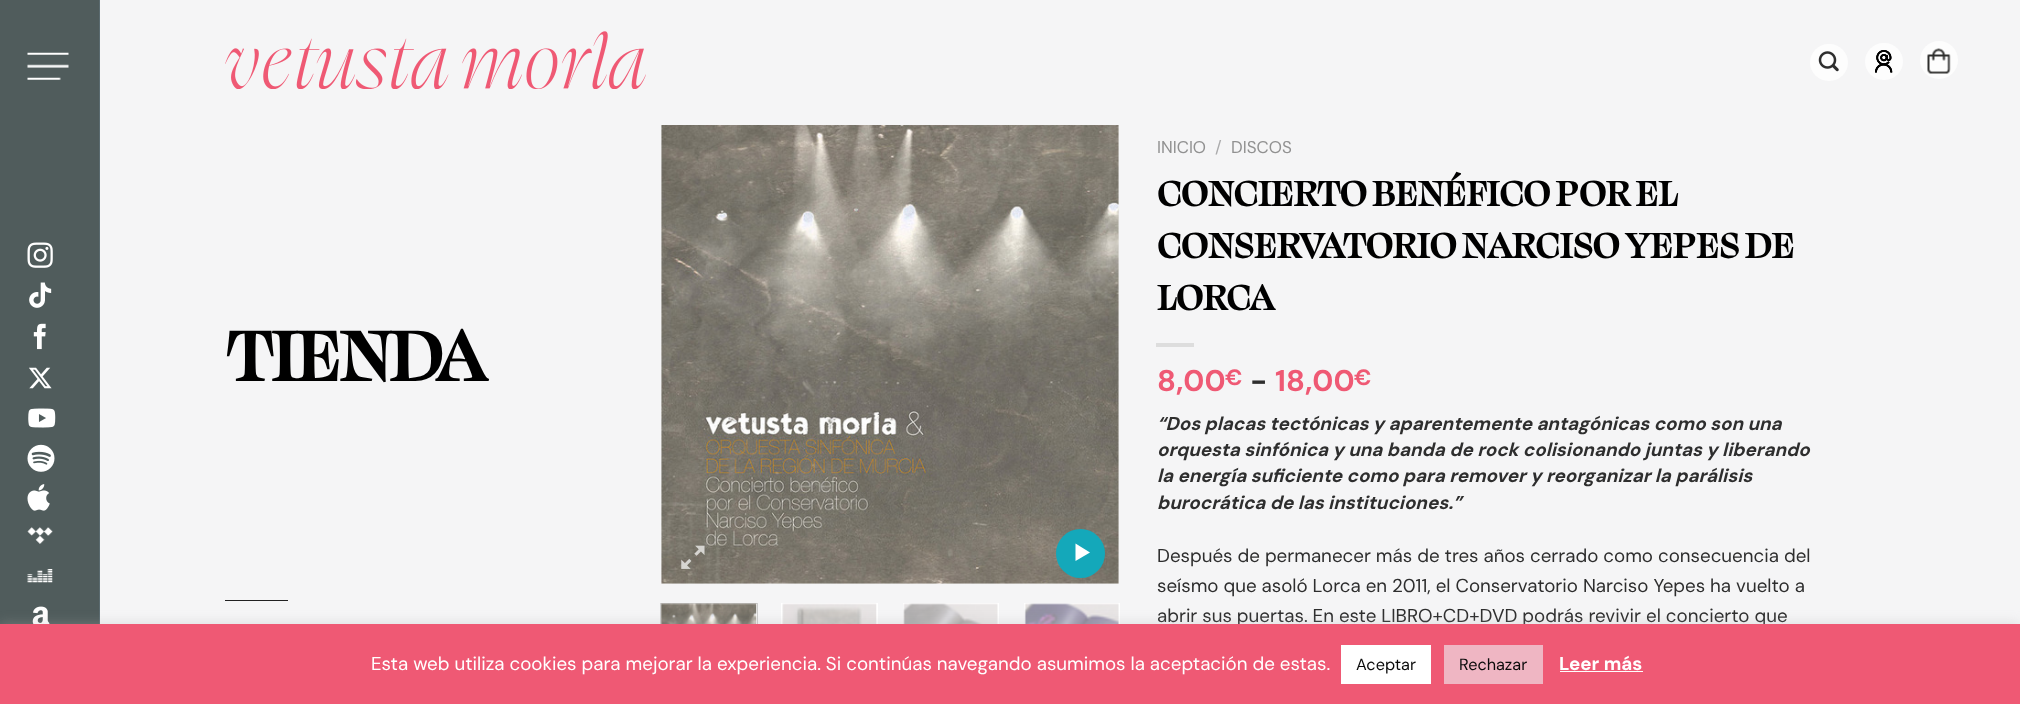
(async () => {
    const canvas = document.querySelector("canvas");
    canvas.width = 2020;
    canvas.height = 704;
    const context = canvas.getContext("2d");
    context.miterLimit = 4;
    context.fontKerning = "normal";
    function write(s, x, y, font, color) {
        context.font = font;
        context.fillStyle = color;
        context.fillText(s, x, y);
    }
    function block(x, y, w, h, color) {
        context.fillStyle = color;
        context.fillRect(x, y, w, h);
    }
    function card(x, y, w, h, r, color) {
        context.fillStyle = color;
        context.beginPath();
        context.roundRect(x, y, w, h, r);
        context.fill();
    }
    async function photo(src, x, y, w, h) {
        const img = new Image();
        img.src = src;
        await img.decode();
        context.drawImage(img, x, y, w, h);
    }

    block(0, 0, 2020, 704, "rgb(245, 245, 246)");
    block(0, 0, 99, 624, "rgb(80, 92, 92)");
    block(99, 0, 1, 624, "rgb(91, 107, 112)");
    await photo("media/1.png", 27, 52, 42, 28);
    await photo("media/2.png", 27, 242, 26, 26);
    await photo("media/3.png", 29, 282, 23, 26);
    await photo("media/4.png", 33, 323, 13, 27);
    await photo("media/5.png", 29, 367, 23, 22);
    await photo("media/6.png", 28, 408, 28, 20);
    await photo("media/7.png", 27, 444, 28, 28);
    await photo("media/8.png", 27, 484, 23, 27);
    await photo("media/9.png", 27, 527, 26, 17);
    await photo("media/10.png", 27, 569, 26, 14);
    await photo("media/11.png", 32, 606, 18, 18);
    await photo("media/12.png", 225, 31, 421, 58);
    card(1810, 44, 38, 37, 18.5, "rgb(253, 253, 253)");
    await photo("media/13.png", 1818, 51, 21, 21);
    card(1865, 43, 38, 37, 18.5, "rgb(253, 253, 253)");
    await photo("media/14.png", 1875, 50, 18, 23);
    context.beginPath();
    context.arc(1939, 60, 19, 0, Math.PI * 2);
    context.fill();
    await photo("media/15.png", 1927, 48, 24, 26);
    context.letterSpacing = "-1.5px";
    write("TIENDA", 225, 381, "bold 80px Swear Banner", "rgb(0, 0, 0)");
    await photo("media/16.png", 661, 125, 458, 459);
    await photo("media/17.png", 681, 545, 24, 24);
    context.fillStyle = "rgb(20, 168, 186)";
    context.beginPath();
    context.arc(1080.5, 553.5, 24.5, 0, Math.PI * 2);
    context.fill();
    context.fillStyle = "rgb(255, 255, 255)";
    context.beginPath();
    context.moveTo(1075.5, 543.5);
    context.lineTo(1090, 552.5);
    context.lineTo(1075.5, 561);
    context.closePath();
    context.fill();
    block(661, 604, 96, 20, "rgb(255, 255, 255)");
    context.strokeStyle = "rgb(204, 204, 204)";
    context.strokeRect(660.5, 603.5, 97, 89);
    await photo("media/18.png", 661, 603, 96, 21);
    block(781, 603, 97, 21, "rgb(255, 255, 255)");
    await photo("media/19.png", 782, 603, 95, 21);
    block(903, 603, 96, 21, "rgb(255, 255, 255)");
    await photo("media/20.png", 903, 603, 95, 21);
    block(1024, 603, 96, 21, "rgb(255, 255, 255)");
    await photo("media/21.png", 1024, 603, 95, 21);
    context.letterSpacing = "0px";
    write("INICIO", 1157, 153, "17px DM Sans", "rgb(145, 145, 145)");
    write("/", 1215, 153, "17px DM Sans", "rgb(171, 171, 172)");
    write("DISCOS", 1231, 153, "17px DM Sans", "rgb(145, 145, 145)");
    write("CONCIERTO BENÉFICO POR EL", 1157, 206, "bold 40px Swear Banner", "rgb(0, 0, 0)");
    write("CONSERVATORIO NARCISO YEPES DE", 1157, 258, "bold 40px Swear Banner", "rgb(0, 0, 0)");
    write("LORCA", 1157, 310, "bold 40px Swear Banner", "rgb(0, 0, 0)");
    block(1156, 343, 38, 4, "rgb(221, 221, 221)");
    write("8,00", 1157, 391, "bold 30px DM Sans", "rgb(239, 89, 116)");
    write("€", 1225, 385, "bold 22px DM Sans", "rgb(239, 89, 116)");
    write("-", 1250, 391, "bold 30px DM Sans", "rgb(46, 46, 46)");
    write("18,00", 1275, 391, "bold 30px DM Sans", "rgb(239, 89, 116)");
    write("€", 1354, 385, "bold 22px DM Sans", "rgb(239, 89, 116)");
    write("“Dos placas tectónicas y aparentemente antagónicas como son una", 1157, 430, "italic bold 18.75px DM Sans", "rgb(46, 46, 46)");
    write("orquesta sinfónica y una banda de rock colisionando juntas y liberando", 1157, 456, "italic bold 18.75px DM Sans", "rgb(46, 46, 46)");
    write("la energía suficiente como para remover y reorganizar la parálisis", 1157, 482, "italic bold 18.75px DM Sans", "rgb(46, 46, 46)");
    write("burocrática de las instituciones.”", 1157, 509, "italic bold 18.75px DM Sans", "rgb(46, 46, 46)");
    write("Después de permanecer más de tres años cerrado como consecuencia del", 1157, 562, "18.75px DM Sans", "rgb(46, 46, 46)");
    write("seísmo que asoló Lorca en 2011, el Conservatorio Narciso Yepes ha vuelto a", 1157, 592, "18.75px DM Sans", "rgb(46, 46, 46)");
    write("abrir sus puertas. En este LIBRO+CD+DVD podrás revivir el concierto que", 1157, 622, "18.75px DM Sans", "rgb(46, 46, 46)");
    block(225, 600, 63, 1, "rgb(34, 34, 34)");
    context.fillStyle = "rgba(172, 171, 171, 0.3)";
    context.filter = "blur(6px)";
    context.beginPath();
    context.rect(0, 623, 2020, 81);
    context.fill();
    context.filter = "none";
    block(0, 624, 2020, 80, "rgb(239, 89, 116)");
    write("Esta web utiliza cookies para mejorar la experiencia. Si continúas navegando asumimos la aceptación de estas.", 371, 670, "18.75px DM Sans", "rgb(255, 255, 255)");
    block(1341, 645, 90, 39, "rgb(255, 255, 255)");
    write("Aceptar", 1356, 670, "16.25px DM Sans", "rgb(10, 10, 10)");
    block(1444, 645, 99, 39, "rgb(239, 182, 195)");
    write("Rechazar", 1459, 670, "16.25px DM Sans", "rgb(10, 10, 10)");
    write("Leer más", 1559, 670, "bold 18.75px DM Sans", "rgb(255, 255, 255)");
    block(1560, 671, 83, 1, "rgb(255, 255, 255)");
})();
